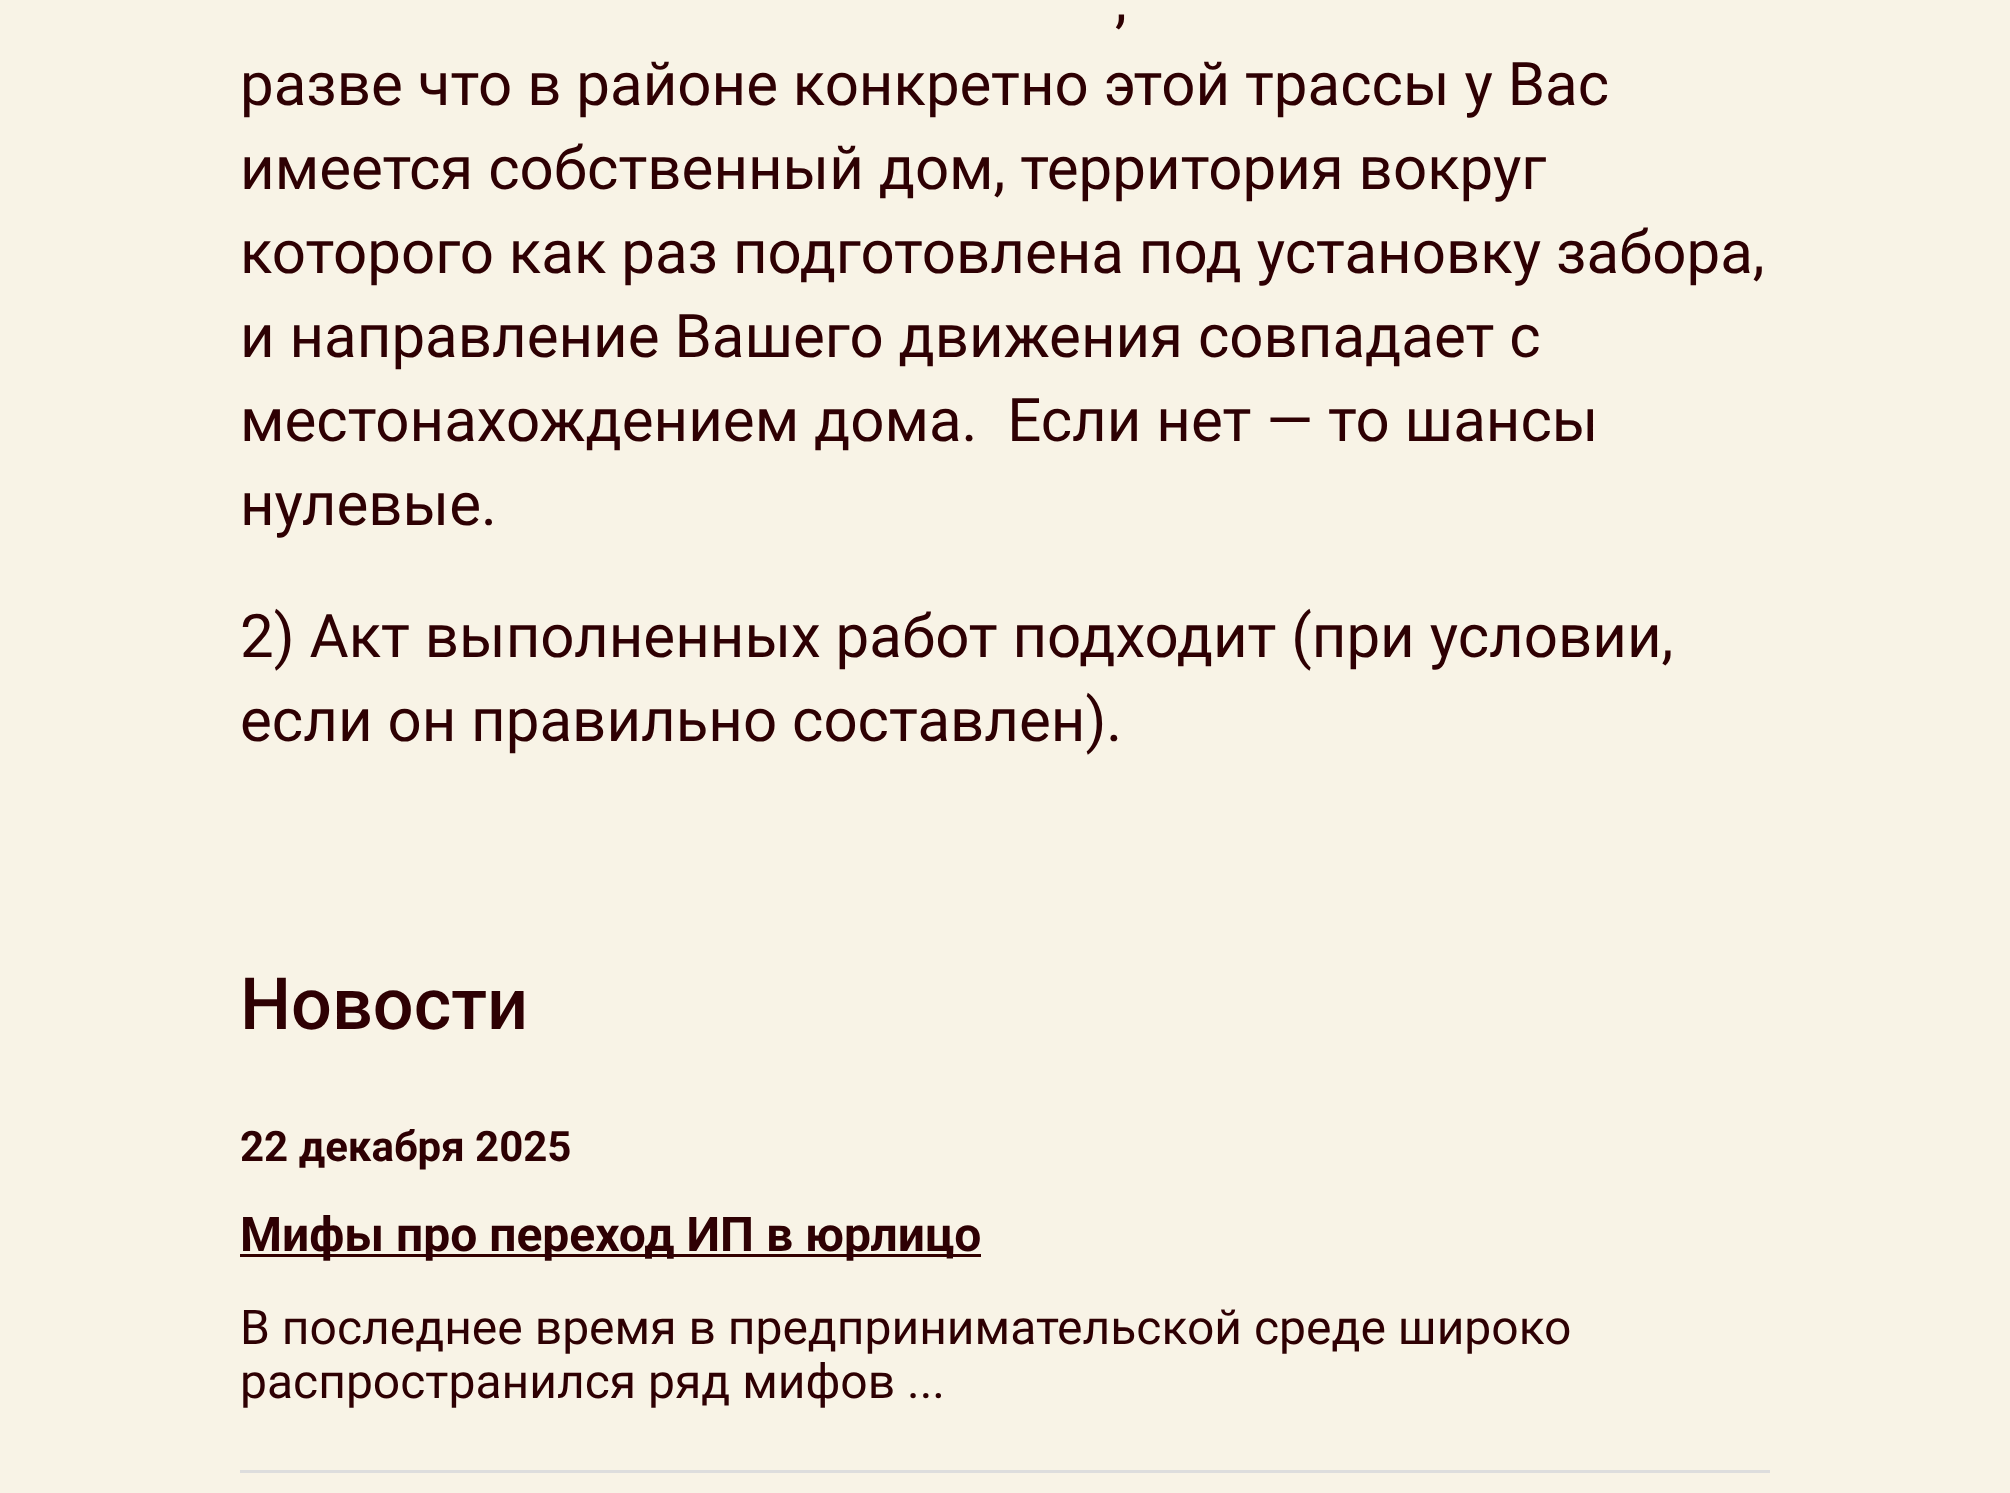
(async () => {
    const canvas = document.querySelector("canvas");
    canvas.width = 2010;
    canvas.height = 1493;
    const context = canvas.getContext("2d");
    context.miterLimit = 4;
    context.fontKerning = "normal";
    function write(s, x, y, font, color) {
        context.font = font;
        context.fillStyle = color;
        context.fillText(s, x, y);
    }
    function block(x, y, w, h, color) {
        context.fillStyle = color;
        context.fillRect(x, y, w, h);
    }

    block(0, 0, 2010, 1493, "rgb(248, 243, 230)");
    write(",", 1115, 21, "60px Roboto", "rgb(46, 0, 3)");
    write("разве что в районе конкретно этой трассы у Вас", 240, 105, "60px Roboto", "rgb(46, 0, 3)");
    write("имеется собственный дом, территория вокруг", 240, 189, "60px Roboto", "rgb(46, 0, 3)");
    write("которого как раз подготовлена под установку забора,", 240, 273, "60px Roboto", "rgb(46, 0, 3)");
    write("и направление Вашего движения совпадает с", 240, 357, "60px Roboto", "rgb(46, 0, 3)");
    write("местонахождением дома.  Если нет — то шансы", 240, 441, "60px Roboto", "rgb(46, 0, 3)");
    write("нулевые.", 240, 525, "60px Roboto", "rgb(46, 0, 3)");
    write("2) Акт выполненных работ подходит (при условии,", 240, 657, "60px Roboto", "rgb(46, 0, 3)");
    write("если он правильно составлен).", 240, 741, "60px Roboto", "rgb(46, 0, 3)");
    write("Новости", 240, 1029, "500 72px Roboto", "rgb(46, 0, 3)");
    block(240, 1470, 1530, 3, "rgb(221, 221, 221)");
    write("22 декабря 2025", 240, 1161, "bold 42px Roboto", "rgb(46, 0, 3)");
    block(240, 1254, 741, 3, "rgb(51, 0, 0)");
    write("Мифы про переход ИП в юрлицо", 240, 1251, "bold 48px Roboto", "rgb(46, 0, 3)");
    write("В последнее время в предпринимательской среде широко", 240, 1344, "48px Roboto", "rgb(46, 0, 3)");
    write("распространился ряд мифов ...", 240, 1398, "48px Roboto", "rgb(46, 0, 3)");
})();
